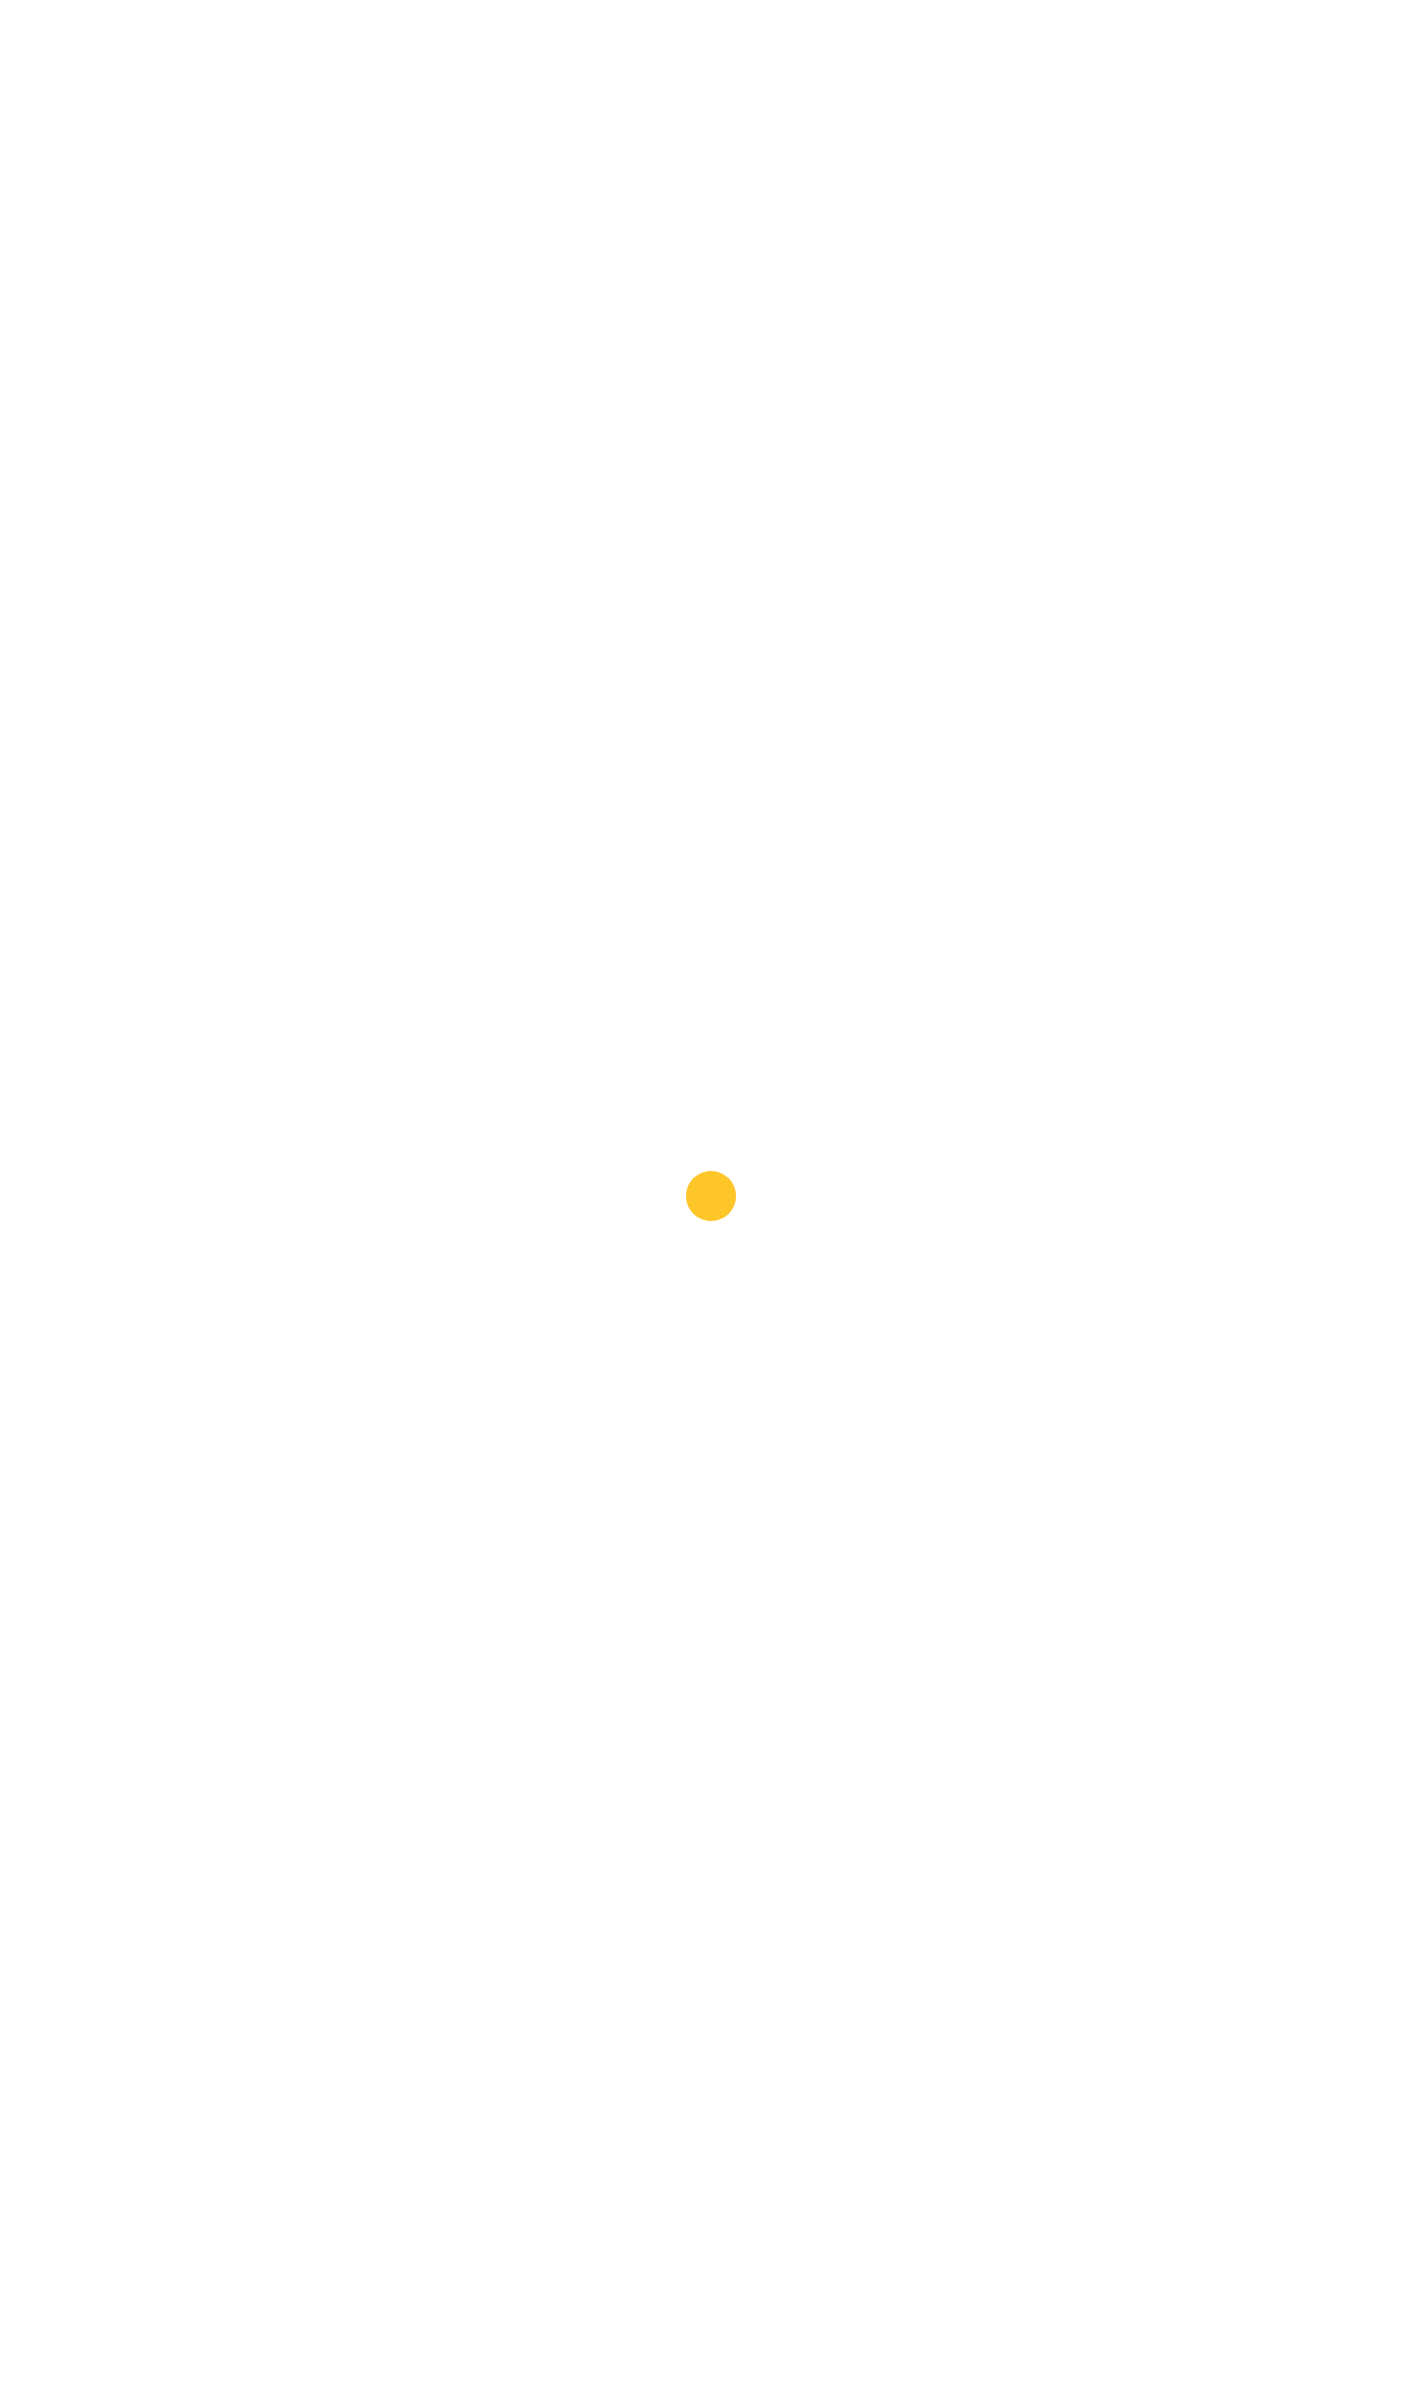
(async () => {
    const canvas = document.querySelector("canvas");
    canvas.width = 1422;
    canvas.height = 2391;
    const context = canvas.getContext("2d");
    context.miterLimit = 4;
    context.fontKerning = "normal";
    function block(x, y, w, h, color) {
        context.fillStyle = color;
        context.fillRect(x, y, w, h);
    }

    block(0, 0, 1422, 2391, "rgb(255, 255, 255)");
    context.fillStyle = "rgb(255, 214, 102)";
    context.beginPath();
    context.arc(711, 1196, 25, 0, Math.PI * 2);
    context.fill();
    context.fillStyle = "rgba(255, 187, 0, 0.6)";
    context.beginPath();
    context.arc(711, 1196, 25, 0, Math.PI * 2);
    context.fill();
})();
